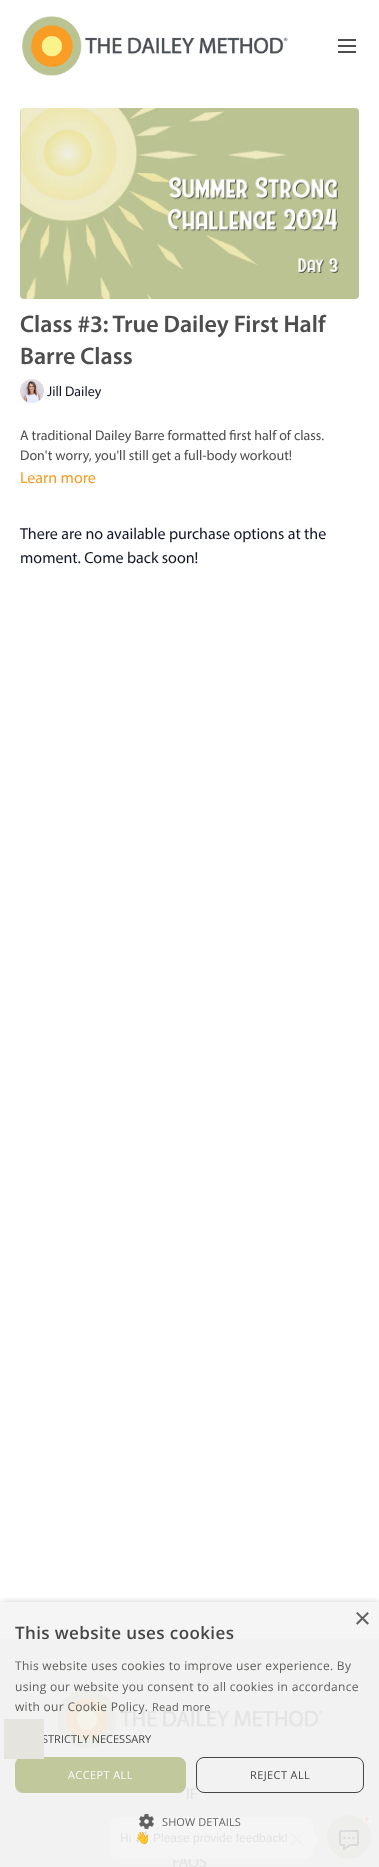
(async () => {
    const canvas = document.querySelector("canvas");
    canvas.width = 379;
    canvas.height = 1867;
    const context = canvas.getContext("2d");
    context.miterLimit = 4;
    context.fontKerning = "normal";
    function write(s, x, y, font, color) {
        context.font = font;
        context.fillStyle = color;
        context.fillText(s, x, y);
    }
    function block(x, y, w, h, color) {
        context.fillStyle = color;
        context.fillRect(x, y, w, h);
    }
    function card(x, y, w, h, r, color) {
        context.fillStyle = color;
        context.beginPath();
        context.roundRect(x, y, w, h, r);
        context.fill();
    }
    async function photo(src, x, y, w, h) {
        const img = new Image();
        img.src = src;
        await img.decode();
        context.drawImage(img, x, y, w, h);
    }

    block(0, 0, 379, 1867, "rgb(255, 255, 255)");
    block(0, 1602, 379, 37, "rgb(245, 245, 245)");
    await photo("media/1.png", 22, 16, 266, 60);
    block(338, 39, 18, 2, "rgb(77, 77, 77)");
    block(338, 45, 18, 2, "rgb(77, 77, 77)");
    block(338, 51, 18, 2, "rgb(77, 77, 77)");
    await photo("media/2.png", 20, 108, 339, 191);
    write("Class #3: True Dailey First Half", 20, 332, "600 24px Myriad", "rgb(77, 77, 77)");
    write("Barre Class", 20, 364, "600 24px Myriad", "rgb(77, 77, 77)");
    await photo("media/3.png", 20, 379, 24, 24);
    write("Jill Dailey", 47, 396, "14px Myriad", "rgb(17, 24, 39)");
    write("A traditional Dailey Barre formatted first half of class.", 20, 440, "14px Myriad", "rgb(77, 77, 77)");
    write("Don't worry, you'll still get a full-body workout!", 20, 460, "14px Myriad", "rgb(77, 77, 77)");
    write("Learn more", 20, 483, "16px Myriad", "rgb(249, 156, 36)");
    write("There are no available purchase options at the", 20, 539, "16px Myriad", "rgb(17, 24, 39)");
    write("moment. Come back soon!", 20, 563, "16px Myriad", "rgb(17, 24, 39)");
    block(0, 1639, 379, 228, "rgb(243, 242, 242)");
    await photo("media/5.png", 57, 1689, 266, 60);
    write("FAQS", 172, 1867, "16px Myriad", "rgb(227, 227, 227)");
    card(110, 1817, 203, 42, 8, "rgb(245, 245, 245)");
    context.beginPath();
    context.moveTo(311, 1830.5);
    context.lineTo(319.5, 1839);
    context.lineTo(311, 1847.5);
    context.lineTo(302.5, 1839);
    context.closePath();
    context.fill();
    await photo("media/6.png", 290, 1832, 14, 14);
    context.fillStyle = "rgb(238, 239, 234)";
    context.beginPath();
    context.arc(349, 1837, 22, 0, Math.PI * 2);
    context.fill();
    context.fillStyle = "rgb(245, 230, 220)";
    context.beginPath();
    context.arc(367, 1819, 3, 0, Math.PI * 2);
    context.fill();
    context.strokeStyle = "rgb(245, 245, 245)";
    context.lineWidth = 2;
    context.stroke();
    await photo("media/7.png", 339, 1830, 20, 20);
    context.save();
    context.beginPath();
    context.rect(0, 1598, 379, 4);
    context.clip();
    context.fillStyle = "rgba(26, 26, 26, 0.35)";
    context.filter = "blur(4px)";
    context.beginPath();
    context.rect(1, 1604, 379, 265);
    context.fill();
    context.filter = "none";
    context.restore();
    write("×", 354, 1628, "29px Liberation Sans", "rgb(99, 99, 99)");
    context.letterSpacing = "0.4px";
    write("This website uses cookies", 15, 1639, "600 17px Open Sans", "rgb(70, 70, 70)");
    context.letterSpacing = "0.3px";
    write("This website uses cookies to improve user experience. By", 15, 1670, "12px Open Sans", "rgb(93, 93, 91)");
    write("using our website you consent to all cookies in accordance", 15, 1691, "12px Open Sans", "rgb(93, 93, 91)");
    write("with our Cookie Policy.", 15, 1711, "12px Open Sans", "rgb(93, 93, 91)");
    write("Read more", 152, 1711, "11px Open Sans", "rgb(93, 93, 91)");
    context.letterSpacing = "0px";
    write("STRICTLY NECESSARY", 42, 1743, "11px Open Sans", "rgb(70, 70, 70)");
    card(15, 1757, 171, 36, 8, "rgba(187, 195, 146, 0.9)");
    block(4, 1719, 40, 40, "rgb(229, 228, 223)");
    context.letterSpacing = "0.4px";
    write("ACCEPT ALL", 68, 1779, "11px Open Sans", "rgb(252, 252, 252)");
    context.letterSpacing = "0px";
    write("IF", 186, 1799, "16px Myriad", "rgb(227, 227, 227)");
    context.beginPath();
    context.roundRect(196.5, 1757.5, 167, 35, 7.5);
    context.strokeStyle = "rgba(51, 51, 51, 0.9)";
    context.lineWidth = 1;
    context.stroke();
    context.letterSpacing = "0.4px";
    write("REJECT ALL", 250, 1779, "11px Open Sans", "rgb(70, 70, 70)");
    await photo("media/4.png", 139, 1814, 15, 15);
    context.letterSpacing = "0.1px";
    write("SHOW DETAILS", 162, 1826, "11px Open Sans", "rgb(99, 99, 99)");
    context.letterSpacing = "0px";
    write("Hi", 120, 1842, "12px Liberation Sans", "rgb(227, 227, 227)");
    write("👋", 135, 1842, "12px Noto Color Emoji", "rgb(227, 227, 227)");
    write("Please provide feedback!", 153, 1842, "12px Liberation Sans", "rgb(227, 227, 227)");
})();
